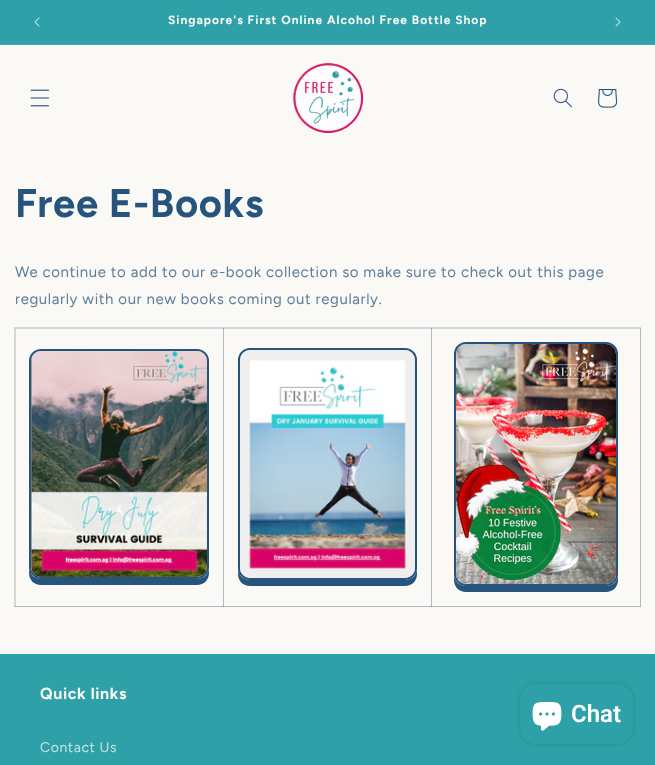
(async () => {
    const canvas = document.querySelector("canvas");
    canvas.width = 655;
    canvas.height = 765;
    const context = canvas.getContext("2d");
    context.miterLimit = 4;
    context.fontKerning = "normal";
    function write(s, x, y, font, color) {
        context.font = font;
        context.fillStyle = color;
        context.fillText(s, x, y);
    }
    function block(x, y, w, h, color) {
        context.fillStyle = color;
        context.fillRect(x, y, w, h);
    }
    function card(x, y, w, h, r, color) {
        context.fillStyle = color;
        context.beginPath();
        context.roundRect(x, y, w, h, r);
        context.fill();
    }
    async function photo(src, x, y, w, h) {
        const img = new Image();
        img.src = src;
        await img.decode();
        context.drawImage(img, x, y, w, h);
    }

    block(0, 0, 655, 765, "rgb(250, 249, 246)");
    block(0, 0, 655, 44, "rgb(46, 161, 168)");
    block(0, 44, 655, 1, "rgb(62, 168, 174)");
    await photo("media/1.png", 34, 17, 6, 10);
    context.letterSpacing = "1px";
    write("Singapore's First Online Alcohol Free Bottle Shop", 168, 24, "bold 12px Figtree", "rgb(250, 249, 246)");
    await photo("media/2.png", 615, 17, 6, 10);
    await photo("media/3.png", 30, 89, 20, 18);
    await photo("media/4.png", 293, 63, 70, 70);
    await photo("media/5.png", 553, 88, 19, 20);
    await photo("media/6.png", 598, 89, 20, 19);
    context.letterSpacing = "0.6px";
    write("Free E-Books", 15, 217, "bold 40px Figtree", "rgb(39, 84, 125)");
    write("We continue to add to our e-book collection so make sure to check out this page", 15, 277, "15px Figtree", "rgb(92, 125, 155)");
    write("regularly with our new books coming out regularly.", 15, 304, "15px Figtree", "rgb(92, 125, 155)");
    context.strokeStyle = "rgb(208, 216, 222)";
    context.strokeRect(14.5, 327.5, 626, 279);
    block(431, 328, 210, 1, "rgba(39, 84, 125, 0.2)");
    block(640, 328, 1, 279, "rgba(39, 84, 125, 0.2)");
    block(431, 606, 210, 1, "rgba(39, 84, 125, 0.2)");
    block(431, 328, 1, 279, "rgba(39, 84, 125, 0.2)");
    block(223, 328, 209, 1, "rgba(39, 84, 125, 0.2)");
    block(431, 328, 1, 279, "rgba(39, 84, 125, 0.2)");
    block(223, 606, 209, 1, "rgba(39, 84, 125, 0.2)");
    block(223, 328, 1, 279, "rgba(39, 84, 125, 0.2)");
    block(15, 328, 209, 1, "rgba(39, 84, 125, 0.2)");
    block(223, 328, 1, 279, "rgba(39, 84, 125, 0.2)");
    block(15, 606, 209, 1, "rgba(39, 84, 125, 0.2)");
    block(15, 328, 1, 279, "rgba(39, 84, 125, 0.2)");
    context.fillStyle = "rgb(39, 84, 125)";
    context.beginPath();
    context.moveTo(29, 567);
    context.lineTo(29, 573);
    context.bezierCurveTo(29, 580, 34, 585, 41, 585);
    context.lineTo(197, 585);
    context.bezierCurveTo(204, 585, 209, 580, 209, 573);
    context.lineTo(209, 567);
    context.bezierCurveTo(209, 574, 204, 579, 197, 579);
    context.lineTo(41, 579);
    context.bezierCurveTo(34, 579, 29, 574, 29, 567);
    context.closePath();
    context.fill();
    context.beginPath();
    context.roundRect(30, 350, 178, 228, 11);
    context.strokeStyle = "rgb(39, 84, 125)";
    context.lineWidth = 2;
    context.stroke();
    await photo("media/7.png", 31, 351, 176, 226);
    context.beginPath();
    context.moveTo(238, 568);
    context.lineTo(238, 574);
    context.bezierCurveTo(238, 581, 243, 586, 250, 586);
    context.lineTo(405, 586);
    context.bezierCurveTo(412, 586, 417, 581, 417, 574);
    context.lineTo(417, 568);
    context.bezierCurveTo(417, 575, 412, 580, 405, 580);
    context.lineTo(250, 580);
    context.bezierCurveTo(243, 580, 238, 575, 238, 568);
    context.closePath();
    context.fill();
    context.beginPath();
    context.roundRect(239, 349, 177, 230, 11);
    context.stroke();
    await photo("media/8.png", 240, 350, 175, 228);
    context.beginPath();
    context.moveTo(454, 574);
    context.lineTo(454, 580);
    context.bezierCurveTo(454, 587, 459, 592, 466, 592);
    context.lineTo(606, 592);
    context.bezierCurveTo(613, 592, 618, 587, 618, 580);
    context.lineTo(618, 574);
    context.bezierCurveTo(618, 581, 613, 586, 606, 586);
    context.lineTo(466, 586);
    context.bezierCurveTo(459, 586, 454, 581, 454, 574);
    context.closePath();
    context.fill();
    context.beginPath();
    context.roundRect(455, 343, 162, 242, 11);
    context.stroke();
    await photo("media/9.png", 456, 344, 160, 240);
    block(0, 654, 655, 111, "rgb(46, 161, 168)");
    write("Quick links", 40, 699, "bold 16px Figtree", "rgb(250, 249, 246)");
    write("Contact Us", 40, 752, "14px Figtree", "rgb(199, 227, 227)");
    context.fillStyle = "rgba(0, 0, 0, 0.15)";
    context.filter = "blur(2.5px)";
    context.beginPath();
    context.roundRect(520, 684, 113, 60, 16);
    context.fill();
    context.filter = "none";
    card(520, 684, 113, 60, 16, "rgb(46, 161, 168)");
    await photo("media/10.png", 532, 702, 30, 29);
    context.letterSpacing = "0px";
    write("Chat", 571, 722, "600 24px Roboto", "rgb(255, 255, 255)");
})();
